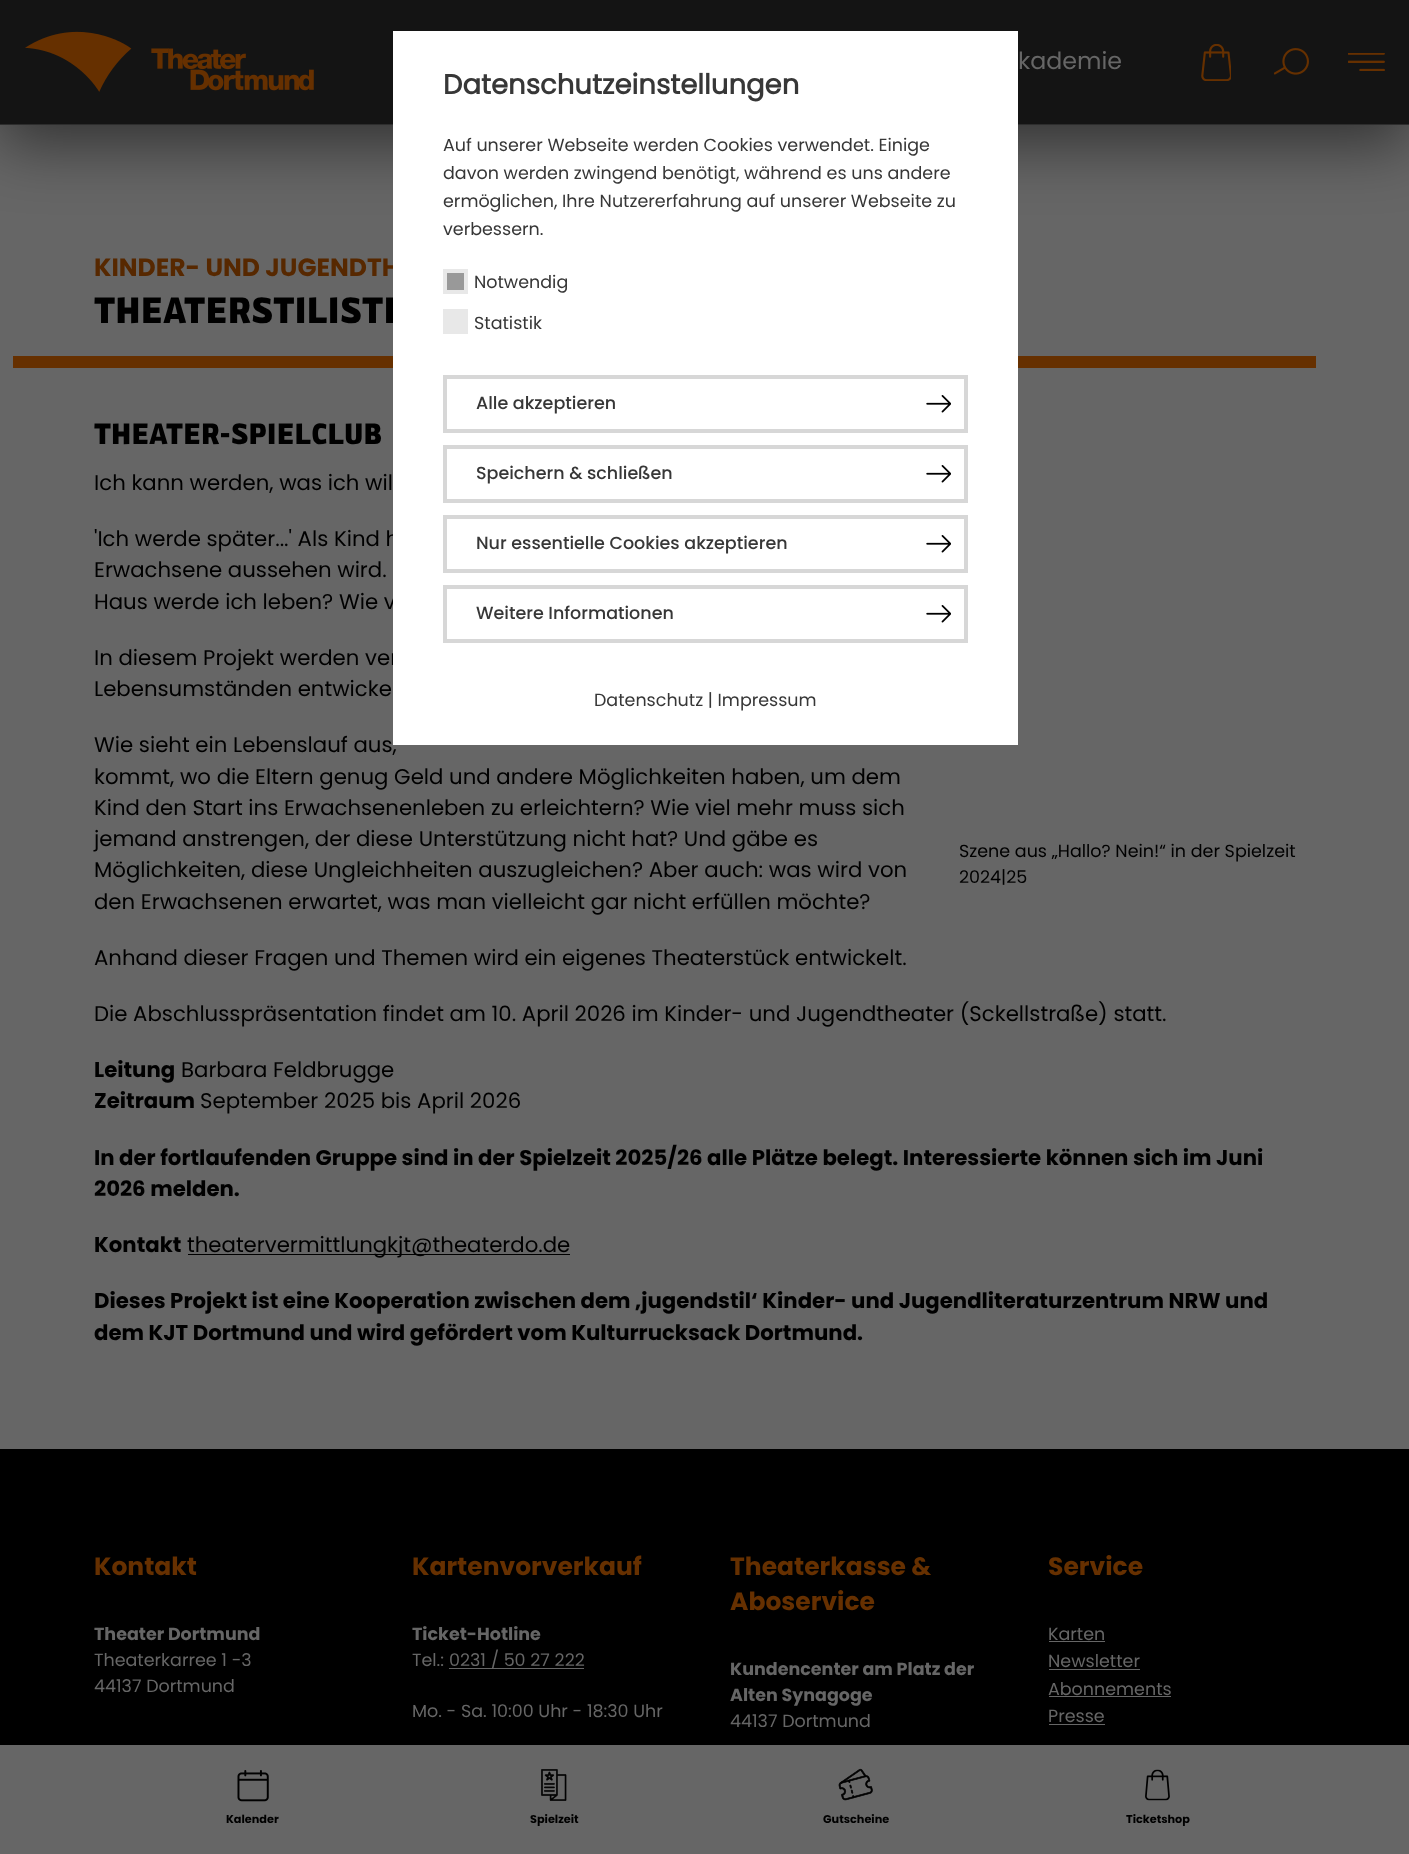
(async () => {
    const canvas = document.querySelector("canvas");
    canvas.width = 1409;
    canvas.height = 1854;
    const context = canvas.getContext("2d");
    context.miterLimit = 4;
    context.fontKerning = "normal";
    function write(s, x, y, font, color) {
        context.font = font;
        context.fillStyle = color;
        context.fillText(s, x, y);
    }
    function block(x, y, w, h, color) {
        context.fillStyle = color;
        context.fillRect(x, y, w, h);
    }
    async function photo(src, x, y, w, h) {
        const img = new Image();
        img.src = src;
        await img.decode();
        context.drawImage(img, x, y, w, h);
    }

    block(0, 0, 1409, 1854, "rgb(0, 0, 0)");
    block(0, 125, 1409, 1324, "rgb(102, 102, 102)");
    context.fillStyle = "rgba(0, 0, 0, 0.5)";
    context.filter = "blur(31px)";
    context.beginPath();
    context.rect(0, 19, 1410, 125);
    context.fill();
    context.filter = "none";
    block(0, 0, 1409, 124, "rgb(20, 20, 20)");
    block(0, 124, 1409, 1, "rgb(45, 45, 45)");
    await photo("media/1.png", 25, 31, 289, 61);
    write("kademie", 1018, 69, "23.75px Poppins", "rgb(102, 102, 102)");
    await photo("media/2.png", 1201, 44, 30, 37);
    await photo("media/3.png", 1274, 48, 35, 27);
    await photo("media/4.png", 1348, 53, 37, 18);
    write("KINDER- UND JUGENDTH", 94, 276, "bold 25px Poppins", "rgb(87, 40, 0)");
    write("THEATERSTILISTE", 94, 323, "900 37.5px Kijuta", "rgb(0, 0, 0)");
    block(13, 356, 1303, 12, "rgb(102, 48, 0)");
    write("'Ich werde später...' Als Kind h", 94, 546, "21.25px Poppins", "rgb(0, 0, 0)");
    write("Haus werde ich leben? Wie v", 94, 609, "21.25px Poppins", "rgb(0, 0, 0)");
    write("In diesem Projekt werden ver", 94, 665, "21.25px Poppins", "rgb(0, 0, 0)");
    write("Wie sieht ein Lebenslauf aus,", 94, 752, "21.25px Poppins", "rgb(0, 0, 0)");
    block(393, 31, 625, 714, "rgb(255, 255, 255)");
    write("Datenschutzeinstellungen", 443, 94, "bold 27.5px 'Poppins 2'", "rgb(55, 55, 55)");
    write("Auf unserer Webseite werden Cookies verwendet. Einige", 443, 151, "17.5px Poppins", "rgb(55, 55, 55)");
    write("davon werden zwingend benötigt, während es uns andere", 443, 179, "17.5px Poppins", "rgb(55, 55, 55)");
    write("ermöglichen, Ihre Nutzererfahrung auf unserer Webseite zu", 443, 207, "17.5px Poppins", "rgb(55, 55, 55)");
    write("verbessern.", 443, 235, "17.5px Poppins", "rgb(55, 55, 55)");
    context.fillStyle = "rgb(153, 153, 153)";
    context.beginPath();
    context.rect(445, 271, 21, 21);
    context.fill();
    context.strokeStyle = "rgb(232, 232, 232)";
    context.lineWidth = 4;
    context.stroke();
    write("Notwendig", 474, 288, "17.5px Poppins", "rgb(55, 55, 55)");
    block(443, 309, 25, 25, "rgb(232, 232, 232)");
    write("Statistik", 474, 329, "17.5px Poppins", "rgb(55, 55, 55)");
    context.strokeStyle = "rgb(215, 215, 215)";
    context.strokeRect(445, 377, 521, 54);
    write("Alle akzeptieren", 476, 409, "500 17.5px Poppins", "rgb(55, 55, 55)");
    await photo("media/5.png", 926, 395, 25, 18);
    context.strokeRect(445, 447, 521, 54);
    write("Speichern & schließen", 476, 479, "500 17.5px Poppins", "rgb(55, 55, 55)");
    await photo("media/5.png", 926, 465, 25, 18);
    context.strokeRect(445, 517, 521, 54);
    write("Nur essentielle Cookies akzeptieren", 476, 549, "500 17.5px Poppins", "rgb(55, 55, 55)");
    await photo("media/5.png", 926, 535, 25, 18);
    context.strokeRect(445, 587, 521, 54);
    write("Weitere Informationen", 476, 619, "500 17.5px Poppins", "rgb(55, 55, 55)");
    await photo("media/5.png", 926, 605, 25, 18);
    write("Datenschutz | Impressum", 594, 706, "17.5px Poppins", "rgb(55, 55, 55)");
    write("THEATER-SPIELCLUB", 94, 444, "900 30px Kijuta", "rgb(0, 0, 0)");
    write("Ich kann werden, was ich wil", 94, 490, "21.25px Poppins", "rgb(0, 0, 0)");
    write("Erwachsene aussehen wird.", 94, 577, "21.25px Poppins", "rgb(0, 0, 0)");
    write("Lebensumständen entwicke", 94, 696, "21.25px Poppins", "rgb(0, 0, 0)");
    write("kommt, wo die Eltern genug Geld und andere Möglichkeiten haben, um dem", 94, 784, "21.25px Poppins", "rgb(0, 0, 0)");
    write("Kind den Start ins Erwachsenenleben zu erleichtern? Wie viel mehr muss sich", 94, 815, "21.25px Poppins", "rgb(0, 0, 0)");
    write("jemand anstrengen, der diese Unterstützung nicht hat? Und gäbe es", 94, 846, "21.25px Poppins", "rgb(0, 0, 0)");
    write("Möglichkeiten, diese Ungleichheiten auszugleichen? Aber auch: was wird von", 94, 877, "21.25px Poppins", "rgb(0, 0, 0)");
    write("den Erwachsenen erwartet, was man vielleicht gar nicht erfüllen möchte?", 94, 909, "21.25px Poppins", "rgb(0, 0, 0)");
    write("Szene aus „Hallo? Nein!“ in der Spielzeit", 959, 857, "17.5px Poppins", "rgb(0, 0, 0)");
    write("2024|25", 959, 883, "17.5px Poppins", "rgb(0, 0, 0)");
    write("Anhand dieser Fragen und Themen wird ein eigenes Theaterstück entwickelt.", 94, 965, "21.25px Poppins", "rgb(0, 0, 0)");
    write("Die Abschlusspräsentation findet am 10. April 2026 im Kinder- und Jugendtheater (Sckellstraße) statt.", 94, 1021, "21.25px Poppins", "rgb(0, 0, 0)");
    write("Leitung", 94, 1077, "bold 21.25px Poppins", "rgb(0, 0, 0)");
    write("Barbara Feldbrugge", 181, 1077, "21.25px Poppins", "rgb(0, 0, 0)");
    write("Zeitraum", 94, 1108, "bold 21.25px Poppins", "rgb(0, 0, 0)");
    write("September 2025 bis April 2026", 200, 1108, "21.25px Poppins", "rgb(0, 0, 0)");
    write("In der fortlaufenden Gruppe sind in der Spielzeit 2025/26 alle Plätze belegt. Interessierte können sich im Juni", 94, 1165, "bold 21.25px Poppins", "rgb(0, 0, 0)");
    write("2026 melden.", 94, 1196, "bold 21.25px Poppins", "rgb(0, 0, 0)");
    write("Kontakt", 94, 1252, "bold 21.25px Poppins", "rgb(0, 0, 0)");
    block(188, 1254, 382, 1, "rgb(0, 0, 0)");
    write("theatervermittlungkjt@theaterdo.de", 187, 1252, "21.25px Poppins", "rgb(0, 0, 0)");
    write("Dieses Projekt ist eine Kooperation zwischen dem ‚jugendstil‘ Kinder- und Jugendliteraturzentrum NRW und", 94, 1308, "bold 21.25px Poppins", "rgb(0, 0, 0)");
    write("dem KJT Dortmund und wird gefördert vom Kulturrucksack Dortmund.", 94, 1340, "bold 21.25px Poppins", "rgb(0, 0, 0)");
    write("Kontakt", 94, 1575, "bold 25px Poppins", "rgb(102, 48, 0)");
    write("Theater Dortmund", 94, 1640, "bold 17.5px Poppins", "rgb(102, 102, 102)");
    write("Theaterkarree 1 -3", 94, 1666, "17.5px Poppins", "rgb(102, 102, 102)");
    write("44137 Dortmund", 94, 1692, "17.5px Poppins", "rgb(102, 102, 102)");
    write("Kartenvorverkauf", 412, 1575, "bold 25px Poppins", "rgb(102, 48, 0)");
    write("Ticket-Hotline", 412, 1640, "bold 17.5px Poppins", "rgb(102, 102, 102)");
    write("Tel.:", 412, 1666, "17.5px Poppins", "rgb(102, 102, 102)");
    block(449, 1668, 135, 1, "rgb(102, 102, 102)");
    write("0231 / 50 27 222", 449, 1666, "17.5px Poppins", "rgb(102, 102, 102)");
    write("Mo. - Sa. 10:00 Uhr - 18:30 Uhr", 412, 1717, "17.5px Poppins", "rgb(102, 102, 102)");
    write("Theaterkasse &", 730, 1575, "bold 25px Poppins", "rgb(102, 48, 0)");
    write("Aboservice", 730, 1610, "bold 25px Poppins", "rgb(102, 48, 0)");
    write("Kundencenter am Platz der", 730, 1675, "bold 17.5px Poppins", "rgb(102, 102, 102)");
    write("Alten Synagoge", 730, 1701, "bold 17.5px Poppins", "rgb(102, 102, 102)");
    write("44137 Dortmund", 730, 1727, "17.5px Poppins", "rgb(102, 102, 102)");
    write("Service", 1048, 1575, "bold 25px Poppins", "rgb(102, 48, 0)");
    write("Karten", 1048, 1640, "17.5px Poppins", "rgb(102, 102, 102)");
    block(1049, 1641, 56, 1, "rgb(102, 102, 102)");
    write("Newsletter", 1048, 1667, "17.5px Poppins", "rgb(102, 102, 102)");
    block(1049, 1669, 91, 1, "rgb(102, 102, 102)");
    write("Abonnements", 1048, 1695, "17.5px Poppins", "rgb(102, 102, 102)");
    block(1049, 1696, 122, 1, "rgb(102, 102, 102)");
    write("Presse", 1048, 1722, "17.5px Poppins", "rgb(102, 102, 102)");
    block(1049, 1724, 56, 1, "rgb(102, 102, 102)");
    block(0, 1745, 1409, 109, "rgb(102, 102, 102)");
    await photo("media/6.png", 237, 1770, 32, 32);
    write("Kalender", 226, 1823, "bold 11.25px Poppins", "rgb(0, 0, 0)");
    await photo("media/7.png", 541, 1769, 26, 32);
    write("Spielzeit", 530, 1823, "bold 11.25px Poppins", "rgb(0, 0, 0)");
    await photo("media/8.png", 838, 1768, 35, 33);
    write("Gutscheine", 823, 1823, "bold 11.25px Poppins", "rgb(0, 0, 0)");
    await photo("media/9.png", 1145, 1769, 25, 32);
    write("Ticketshop", 1126, 1823, "bold 11.25px Poppins", "rgb(0, 0, 0)");
})();
